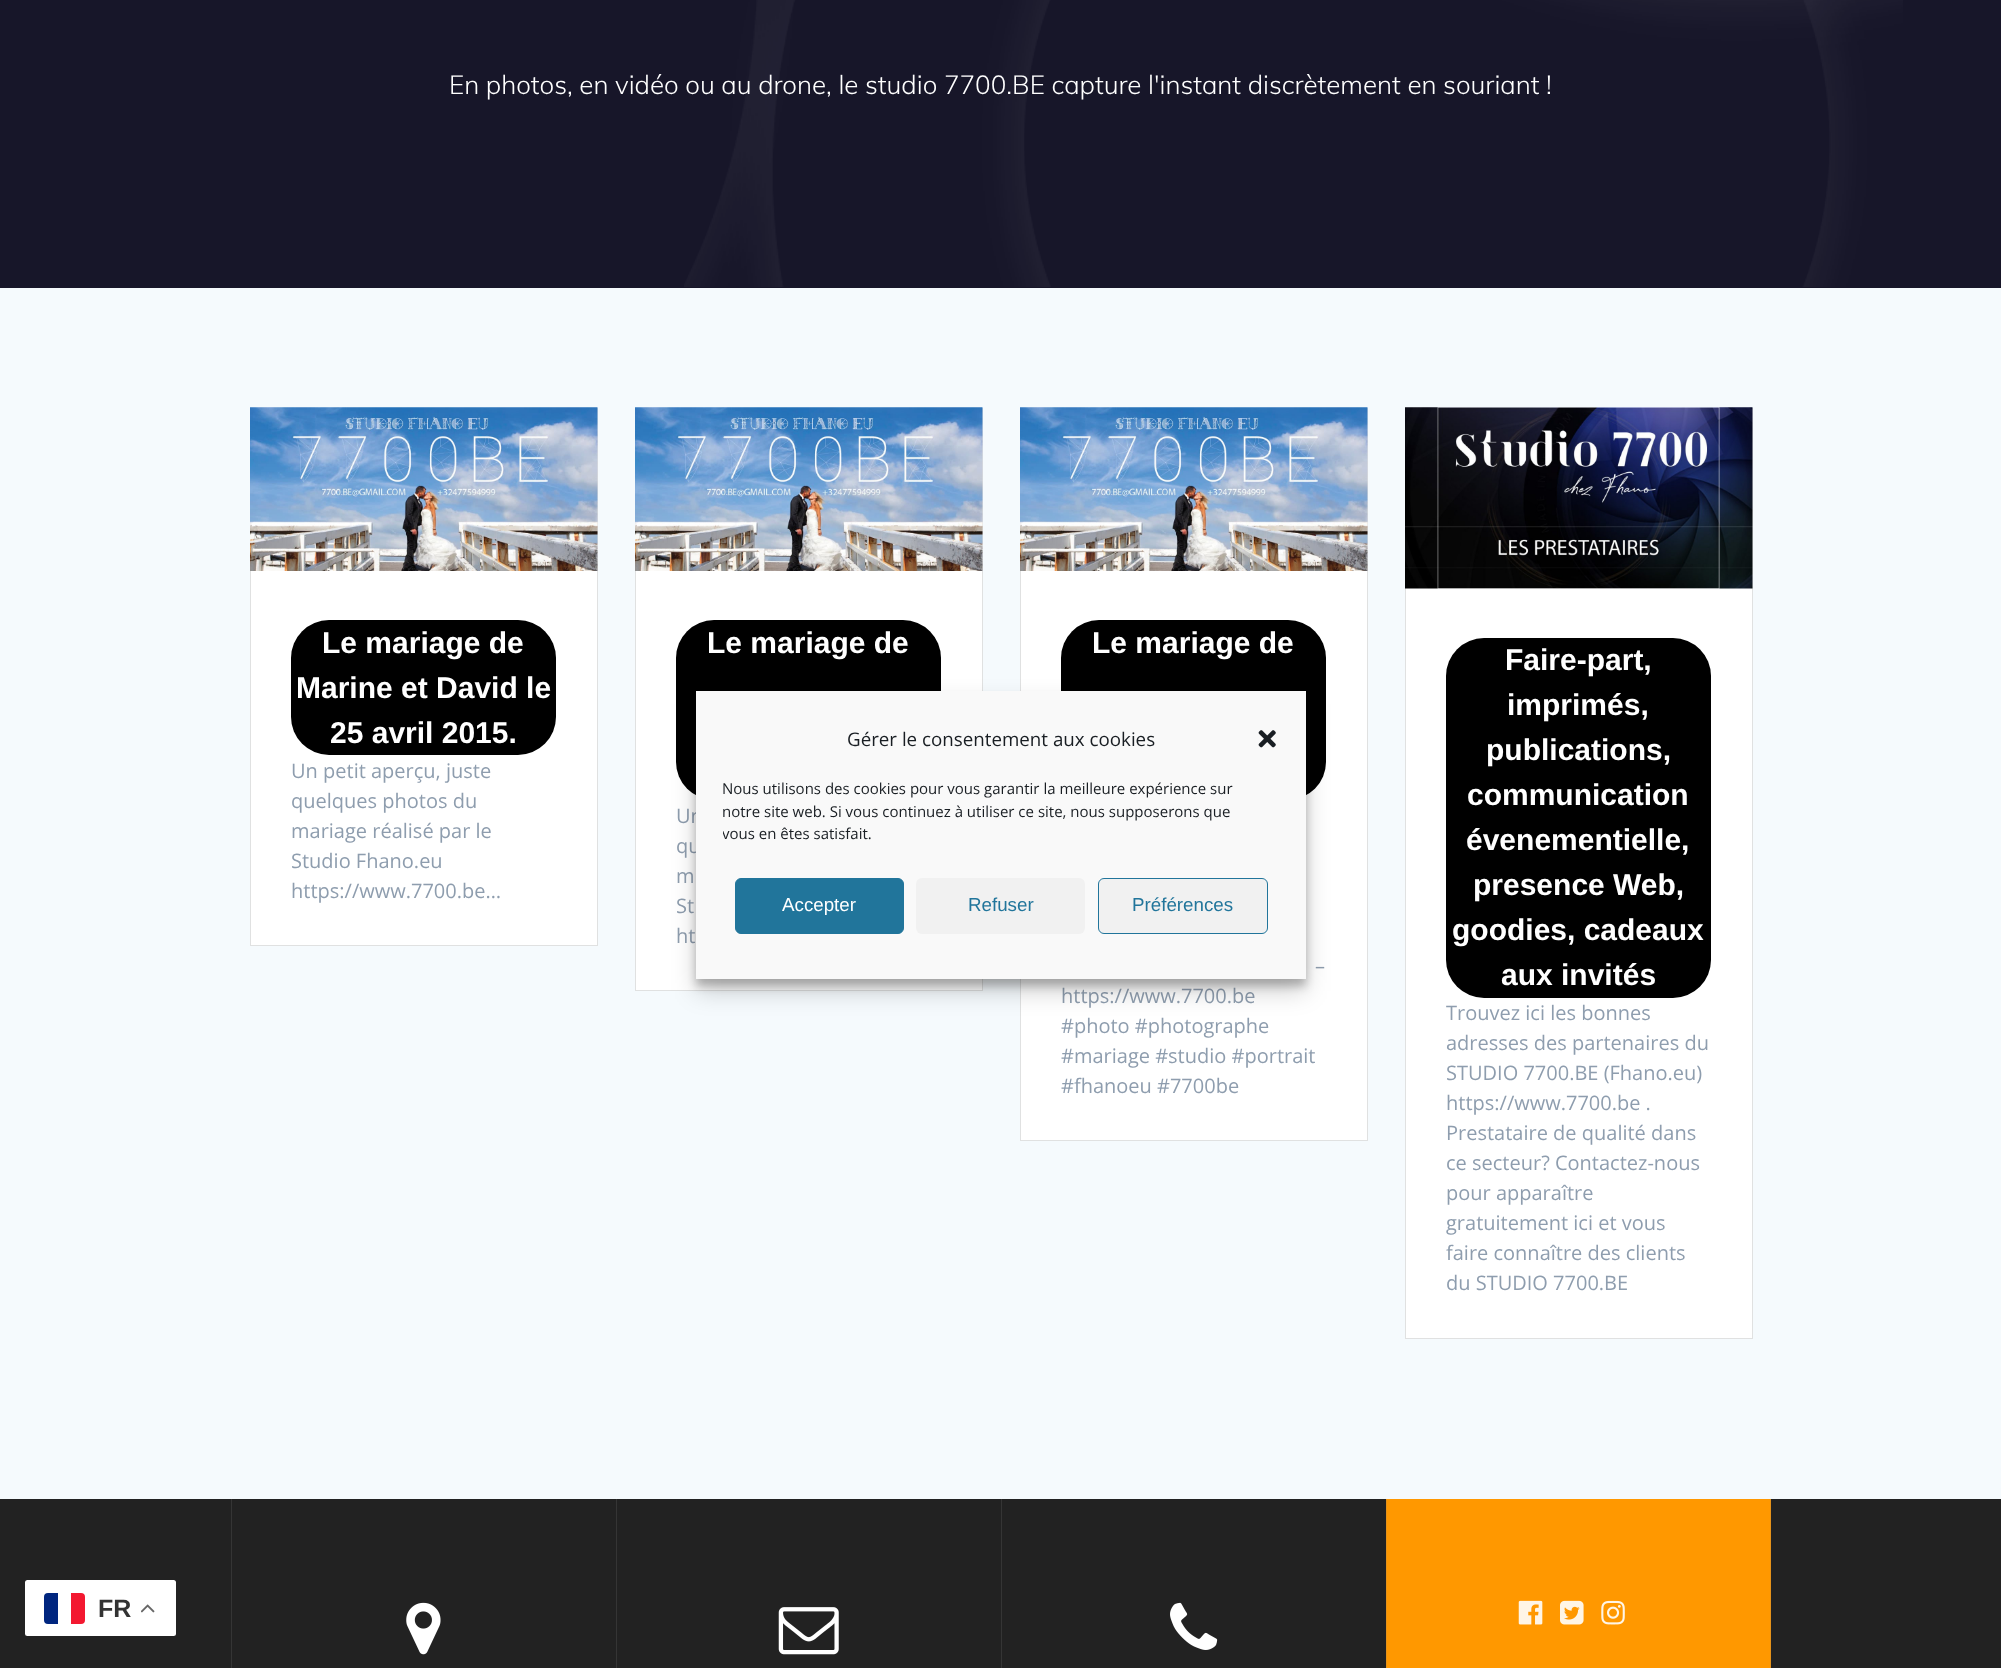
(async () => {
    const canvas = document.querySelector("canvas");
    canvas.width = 2001;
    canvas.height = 1668;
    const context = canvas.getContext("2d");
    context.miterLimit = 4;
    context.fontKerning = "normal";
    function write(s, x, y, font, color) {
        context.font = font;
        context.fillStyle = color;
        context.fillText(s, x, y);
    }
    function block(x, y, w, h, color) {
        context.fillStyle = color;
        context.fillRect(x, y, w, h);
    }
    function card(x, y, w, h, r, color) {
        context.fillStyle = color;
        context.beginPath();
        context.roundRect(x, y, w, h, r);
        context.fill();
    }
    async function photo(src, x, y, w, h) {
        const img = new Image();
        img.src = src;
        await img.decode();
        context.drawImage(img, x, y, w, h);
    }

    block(0, 0, 2001, 1668, "rgb(23, 22, 41)");
    await photo("media/1.png", 684, 0, 1219, 287);
    write("En photos, en vidéo ou au drone, le studio 7700.BE capture l'instant discrètement en souriant !", 449, 94, "300 26px Muli", "rgb(255, 255, 255)");
    block(0, 288, 2001, 1211, "rgb(245, 250, 253)");
    block(251, 571, 346, 374, "rgb(255, 255, 255)");
    context.strokeStyle = "rgb(224, 225, 225)";
    context.strokeRect(250.5, 408.5, 347, 537);
    await photo("media/2.png", 250, 407, 348, 164);
    card(291, 620, 265, 135, 38, "rgb(0, 0, 0)");
    write("Le mariage de", 322, 653, "bold 30px Liberation Sans", "rgb(255, 255, 255)");
    write("Marine et David le", 296, 698, "bold 30px Liberation Sans", "rgb(255, 255, 255)");
    write("25 avril 2015.", 330, 743, "bold 30px Liberation Sans", "rgb(255, 255, 255)");
    write("Un petit aperçu, juste", 291, 778, "20px Open Sans", "rgb(142, 157, 174)");
    write("quelques photos du", 291, 808, "20px Open Sans", "rgb(142, 157, 174)");
    write("mariage réalisé par le", 291, 838, "20px Open Sans", "rgb(142, 157, 174)");
    write("Studio Fhano.eu", 291, 868, "20px Open Sans", "rgb(142, 157, 174)");
    write("https://www.7700.be…", 291, 898, "20px Open Sans", "rgb(142, 157, 174)");
    block(636, 571, 346, 419, "rgb(255, 255, 255)");
    context.strokeRect(635.5, 408.5, 347, 582);
    await photo("media/2.png", 635, 407, 348, 164);
    card(676, 620, 265, 180, 38, "rgb(0, 0, 0)");
    write("Le mariage de", 707, 653, "bold 30px Liberation Sans", "rgb(255, 255, 255)");
    write("Un", 676, 823, "20px Open Sans", "rgb(142, 157, 174)");
    write("qu", 676, 853, "20px Open Sans", "rgb(142, 157, 174)");
    write("m", 676, 883, "20px Open Sans", "rgb(142, 157, 174)");
    write("St", 676, 913, "20px Open Sans", "rgb(142, 157, 174)");
    write("ht", 676, 943, "20px Open Sans", "rgb(142, 157, 174)");
    block(1021, 571, 346, 569, "rgb(255, 255, 255)");
    context.strokeRect(1020.5, 408.5, 347, 732);
    await photo("media/2.png", 1020, 407, 348, 164);
    card(1061, 620, 265, 180, 38, "rgb(0, 0, 0)");
    write("Le mariage de", 1092, 653, "bold 30px Liberation Sans", "rgb(255, 255, 255)");
    write("–", 1315, 973, "20px Open Sans", "rgb(142, 157, 174)");
    write("https://www.7700.be", 1061, 1003, "20px Open Sans", "rgb(142, 157, 174)");
    write("#photo #photographe", 1061, 1033, "20px Open Sans", "rgb(142, 157, 174)");
    write("#mariage #studio #portrait", 1061, 1063, "20px Open Sans", "rgb(142, 157, 174)");
    write("#fhanoeu #7700be", 1061, 1093, "20px Open Sans", "rgb(142, 157, 174)");
    block(1406, 588, 346, 750, "rgb(255, 255, 255)");
    context.strokeRect(1405.5, 408.5, 347, 930);
    await photo("media/3.png", 1405, 407, 348, 182);
    card(1446, 638, 265, 360, 38, "rgb(0, 0, 0)");
    write("Faire-part,", 1505, 670, "bold 30px Liberation Sans", "rgb(255, 255, 255)");
    write("imprimés,", 1507, 715, "bold 30px Liberation Sans", "rgb(255, 255, 255)");
    write("publications,", 1486, 760, "bold 30px Liberation Sans", "rgb(255, 255, 255)");
    write("communication", 1467, 805, "bold 30px Liberation Sans", "rgb(255, 255, 255)");
    write("évenementielle,", 1466, 850, "bold 30px Liberation Sans", "rgb(255, 255, 255)");
    write("presence Web,", 1473, 895, "bold 30px Liberation Sans", "rgb(255, 255, 255)");
    write("goodies, cadeaux", 1452, 940, "bold 30px Liberation Sans", "rgb(255, 255, 255)");
    write("aux invités", 1501, 985, "bold 30px Liberation Sans", "rgb(255, 255, 255)");
    write("Trouvez ici les bonnes", 1446, 1020, "20px Open Sans", "rgb(142, 157, 174)");
    write("adresses des partenaires du", 1446, 1050, "20px Open Sans", "rgb(142, 157, 174)");
    write("STUDIO 7700.BE (Fhano.eu)", 1446, 1080, "20px Open Sans", "rgb(142, 157, 174)");
    write("https://www.7700.be .", 1446, 1110, "20px Open Sans", "rgb(142, 157, 174)");
    write("Prestataire de qualité dans", 1446, 1140, "20px Open Sans", "rgb(142, 157, 174)");
    write("ce secteur? Contactez-nous", 1446, 1170, "20px Open Sans", "rgb(142, 157, 174)");
    write("pour apparaître", 1446, 1200, "20px Open Sans", "rgb(142, 157, 174)");
    write("gratuitement ici et vous", 1446, 1230, "20px Open Sans", "rgb(142, 157, 174)");
    write("faire connaître des clients", 1446, 1260, "20px Open Sans", "rgb(142, 157, 174)");
    write("du STUDIO 7700.BE", 1446, 1290, "20px Open Sans", "rgb(142, 157, 174)");
    block(0, 1499, 2001, 169, "rgb(34, 34, 34)");
    block(231, 1499, 1, 169, "rgb(53, 53, 53)");
    await photo("media/4.png", 406, 1602, 35, 53);
    block(616, 1499, 1, 169, "rgb(53, 53, 53)");
    await photo("media/5.png", 778, 1607, 61, 48);
    block(1001, 1499, 1, 169, "rgb(53, 53, 53)");
    await photo("media/6.png", 1170, 1602, 48, 48);
    block(1387, 1499, 383, 169, "rgb(255, 152, 0)");
    block(1770, 1499, 1, 169, "rgb(230, 147, 26)");
    block(1386, 1499, 1, 169, "rgb(230, 147, 26)");
    await photo("media/7.png", 1518, 1600, 25, 25);
    await photo("media/8.png", 1560, 1600, 24, 25);
    await photo("media/9.png", 1601, 1600, 24, 25);
    context.fillStyle = "rgba(0, 0, 0, 0.23)";
    context.filter = "blur(4px)";
    context.beginPath();
    context.rect(696, 699, 610, 287);
    context.fill();
    context.filter = "none";
    context.fillStyle = "rgba(0, 0, 0, 0.19)";
    context.filter = "blur(12.5px)";
    context.beginPath();
    context.rect(696, 704, 610, 287);
    context.fill();
    context.filter = "none";
    block(696, 691, 610, 288, "rgb(249, 249, 249)");
    write("Gérer le consentement aux cookies", 847, 746, "18.75px Open Sans", "rgb(25, 30, 35)");
    await photo("media/10.png", 1258, 730, 18, 18);
    write("Nous utilisons des cookies pour vous garantir la meilleure expérience sur", 722, 794, "15px Open Sans", "rgb(25, 30, 35)");
    context.save();
    context.beginPath();
    context.rect(723, 779, 557, 74);
    context.clip();
    write("notre site web. Si vous continuez à utiliser ce site, nous supposerons que", 722, 817, "15px Open Sans", "rgb(25, 30, 35)");
    write("vous en êtes satisfait.", 722, 839, "15px Open Sans", "rgb(25, 30, 35)");
    context.restore();
    context.fillStyle = "rgb(33, 117, 155)";
    context.beginPath();
    context.roundRect(735.5, 878.5, 168, 55, 5.5);
    context.fill();
    context.strokeStyle = "rgb(33, 117, 155)";
    context.stroke();
    write("Accepter", 782, 911, "18.75px Liberation Sans", "rgb(255, 255, 255)");
    card(916, 878, 169, 56, 6, "rgb(241, 241, 241)");
    write("Refuser", 968, 911, "18.75px Liberation Sans", "rgb(33, 117, 155)");
    context.fillStyle = "rgb(241, 241, 241)";
    context.beginPath();
    context.roundRect(1098.5, 878.5, 169, 55, 5.5);
    context.fill();
    context.stroke();
    write("Préférences", 1132, 911, "18.75px Liberation Sans", "rgb(33, 117, 155)");
    card(25, 1580, 151, 56, 2.5, "rgb(255, 255, 255)");
    context.fillStyle = "rgb(0, 38, 127)";
    context.beginPath();
    context.roundRect(44, 1593, 14, 31, [4, 0, 0, 4]);
    context.fill();
    context.fillStyle = "rgb(243, 24, 48)";
    context.beginPath();
    context.roundRect(71, 1593, 14, 31, [0, 4, 4, 0]);
    context.fill();
    write("FR", 98, 1617, "bold 25px Liberation Sans", "rgb(51, 51, 51)");
    await photo("media/11.png", 141, 1604, 14, 9);
})();
